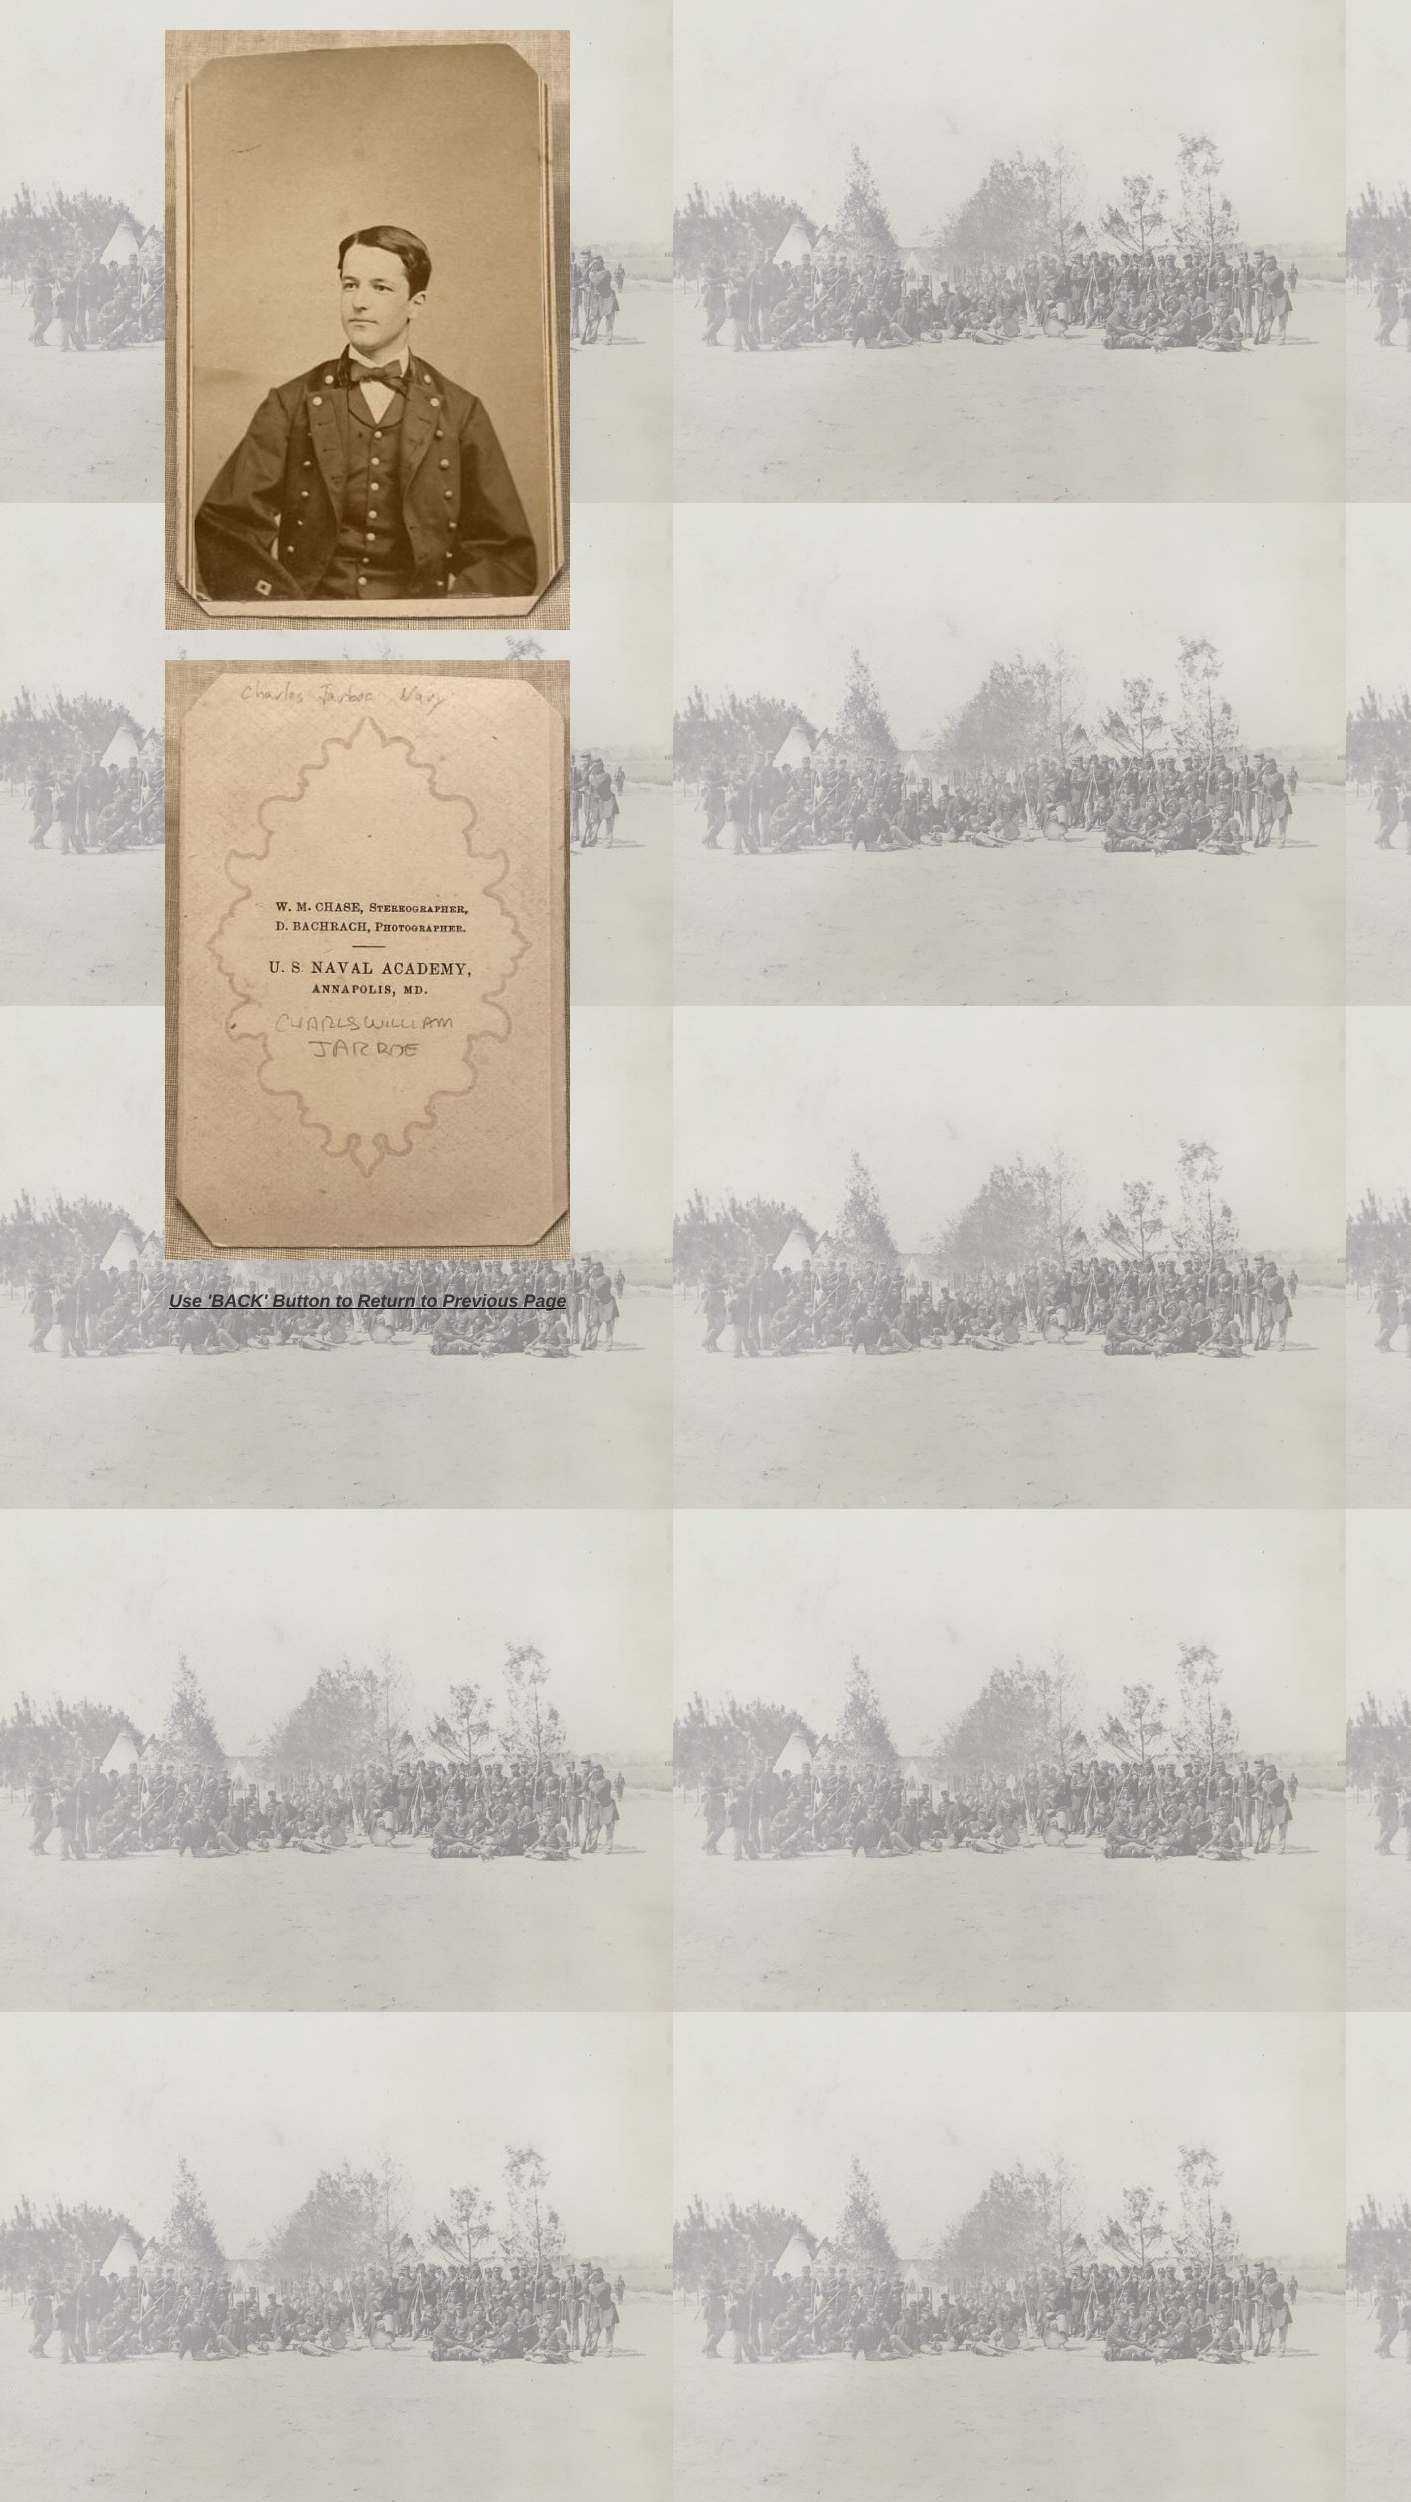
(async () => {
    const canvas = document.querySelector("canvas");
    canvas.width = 1411;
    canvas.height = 2502;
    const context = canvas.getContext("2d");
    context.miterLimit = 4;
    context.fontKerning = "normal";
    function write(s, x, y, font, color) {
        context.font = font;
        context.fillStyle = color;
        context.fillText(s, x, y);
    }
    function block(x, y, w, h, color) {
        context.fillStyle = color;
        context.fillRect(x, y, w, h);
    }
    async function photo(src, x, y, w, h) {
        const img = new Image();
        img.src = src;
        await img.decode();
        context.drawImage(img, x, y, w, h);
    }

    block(0, 0, 1411, 2502, "rgb(255, 255, 255)");
    await photo("media/1.png", 0, 0, 1411, 2502);
    await photo("media/2.png", 165, 30, 405, 600);
    await photo("media/3.png", 165, 660, 405, 600);
    block(169, 1308, 397, 1, "rgb(0, 0, 0)");
    write("Use 'BACK' Button to Return to Previous Page", 169, 1307, "italic bold 18px Liberation Sans", "rgb(51, 51, 51)");
})();
